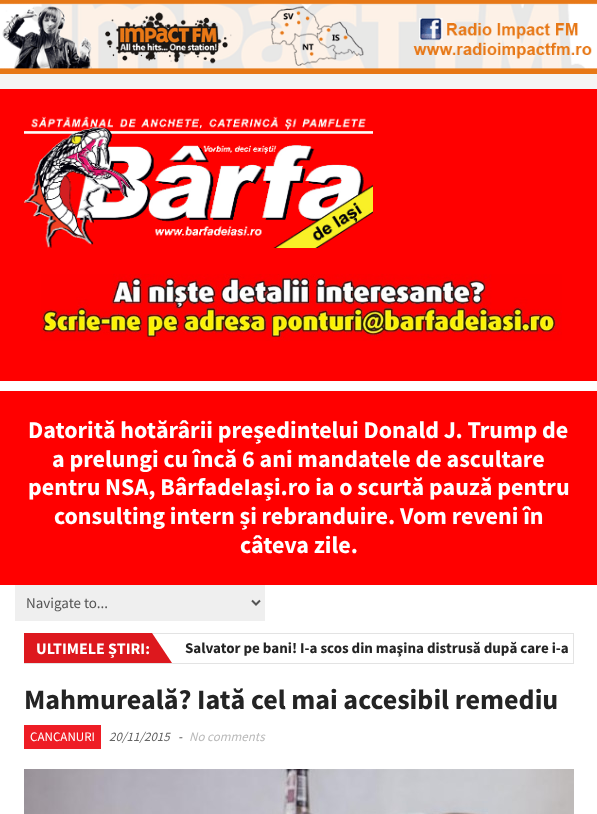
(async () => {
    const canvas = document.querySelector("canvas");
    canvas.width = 597;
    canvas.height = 814;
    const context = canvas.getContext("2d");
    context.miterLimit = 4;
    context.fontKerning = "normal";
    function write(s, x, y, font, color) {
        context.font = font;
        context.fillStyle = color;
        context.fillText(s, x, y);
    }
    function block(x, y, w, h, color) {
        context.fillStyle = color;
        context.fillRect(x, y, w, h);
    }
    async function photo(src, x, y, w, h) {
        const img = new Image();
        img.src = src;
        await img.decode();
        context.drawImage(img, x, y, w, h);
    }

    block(0, 0, 597, 814, "rgb(245, 245, 245)");
    await photo("media/1.png", 0, 0, 597, 74);
    block(0, 381, 597, 433, "rgb(255, 255, 255)");
    block(0, 89, 597, 292, "rgb(255, 0, 0)");
    await photo("media/2.png", 24, 116, 349, 132);
    await photo("media/3.png", 41, 274, 521, 67);
    block(0, 391, 597, 194, "rgb(255, 0, 0)");
    write("Datorită hotărârii președintelui Donald J. Trump de", 28, 438, "bold 24px Source Sans Pro", "rgb(255, 255, 255)");
    write("a prelungi cu încă 6 ani mandatele de ascultare", 52, 467, "bold 24px Source Sans Pro", "rgb(255, 255, 255)");
    write("pentru NSA, BârfadeIași.ro ia o scurtă pauză pentru", 28, 495, "bold 24px Source Sans Pro", "rgb(255, 255, 255)");
    write("consulting intern și rebranduire. Vom reveni în", 54, 524, "bold 24px Source Sans Pro", "rgb(255, 255, 255)");
    write("câteva zile.", 240, 553, "bold 24px Source Sans Pro", "rgb(255, 255, 255)");
    block(15, 585, 250, 36, "rgb(239, 239, 239)");
    context.beginPath();
    context.moveTo(252, 600.5);
    context.lineTo(256, 604.5);
    context.lineTo(260, 600.5);
    context.strokeStyle = "rgb(85, 85, 85)";
    context.lineWidth = 2;
    context.stroke();
    write("Navigate to...", 26, 608, "15px Source Sans Pro", "rgb(85, 85, 85)");
    context.strokeStyle = "rgb(227, 227, 227)";
    context.lineWidth = 1;
    context.strokeRect(24.5, 633.5, 549, 30);
    block(24, 633, 128, 30, "rgb(221, 24, 30)");
    write("ULTIMELE ȘTIRI:", 36, 654, "bold 16px Source Sans Pro", "rgb(255, 255, 255)");
    context.fillStyle = "rgb(221, 24, 30)";
    context.beginPath();
    context.moveTo(152, 663);
    context.lineTo(152, 633);
    context.lineTo(172, 663);
    context.closePath();
    context.fill();
    write("Salvator pe bani! I-a scos din maşina distrusă după care i-a", 185, 653, "bold 15px Source Sans Pro", "rgb(36, 36, 36)");
    write("Mahmureală? Iată cel mai accesibil remediu", 24, 709, "bold 28px Source Sans Pro", "rgb(36, 36, 36)");
    block(24, 725, 77, 24, "rgb(238, 29, 37)");
    write("CANCANURI", 30, 741, "13px Source Sans Pro", "rgb(255, 255, 255)");
    write("20/11/2015", 109, 741, "italic 13px Source Sans Pro", "rgb(100, 100, 100)");
    write("-", 178, 741, "italic 13px Source Sans Pro", "rgb(100, 100, 100)");
    write("No comments", 189, 741, "italic 13px Source Sans Pro", "rgb(186, 186, 186)");
    await photo("media/4.png", 24, 769, 550, 45);
})();
